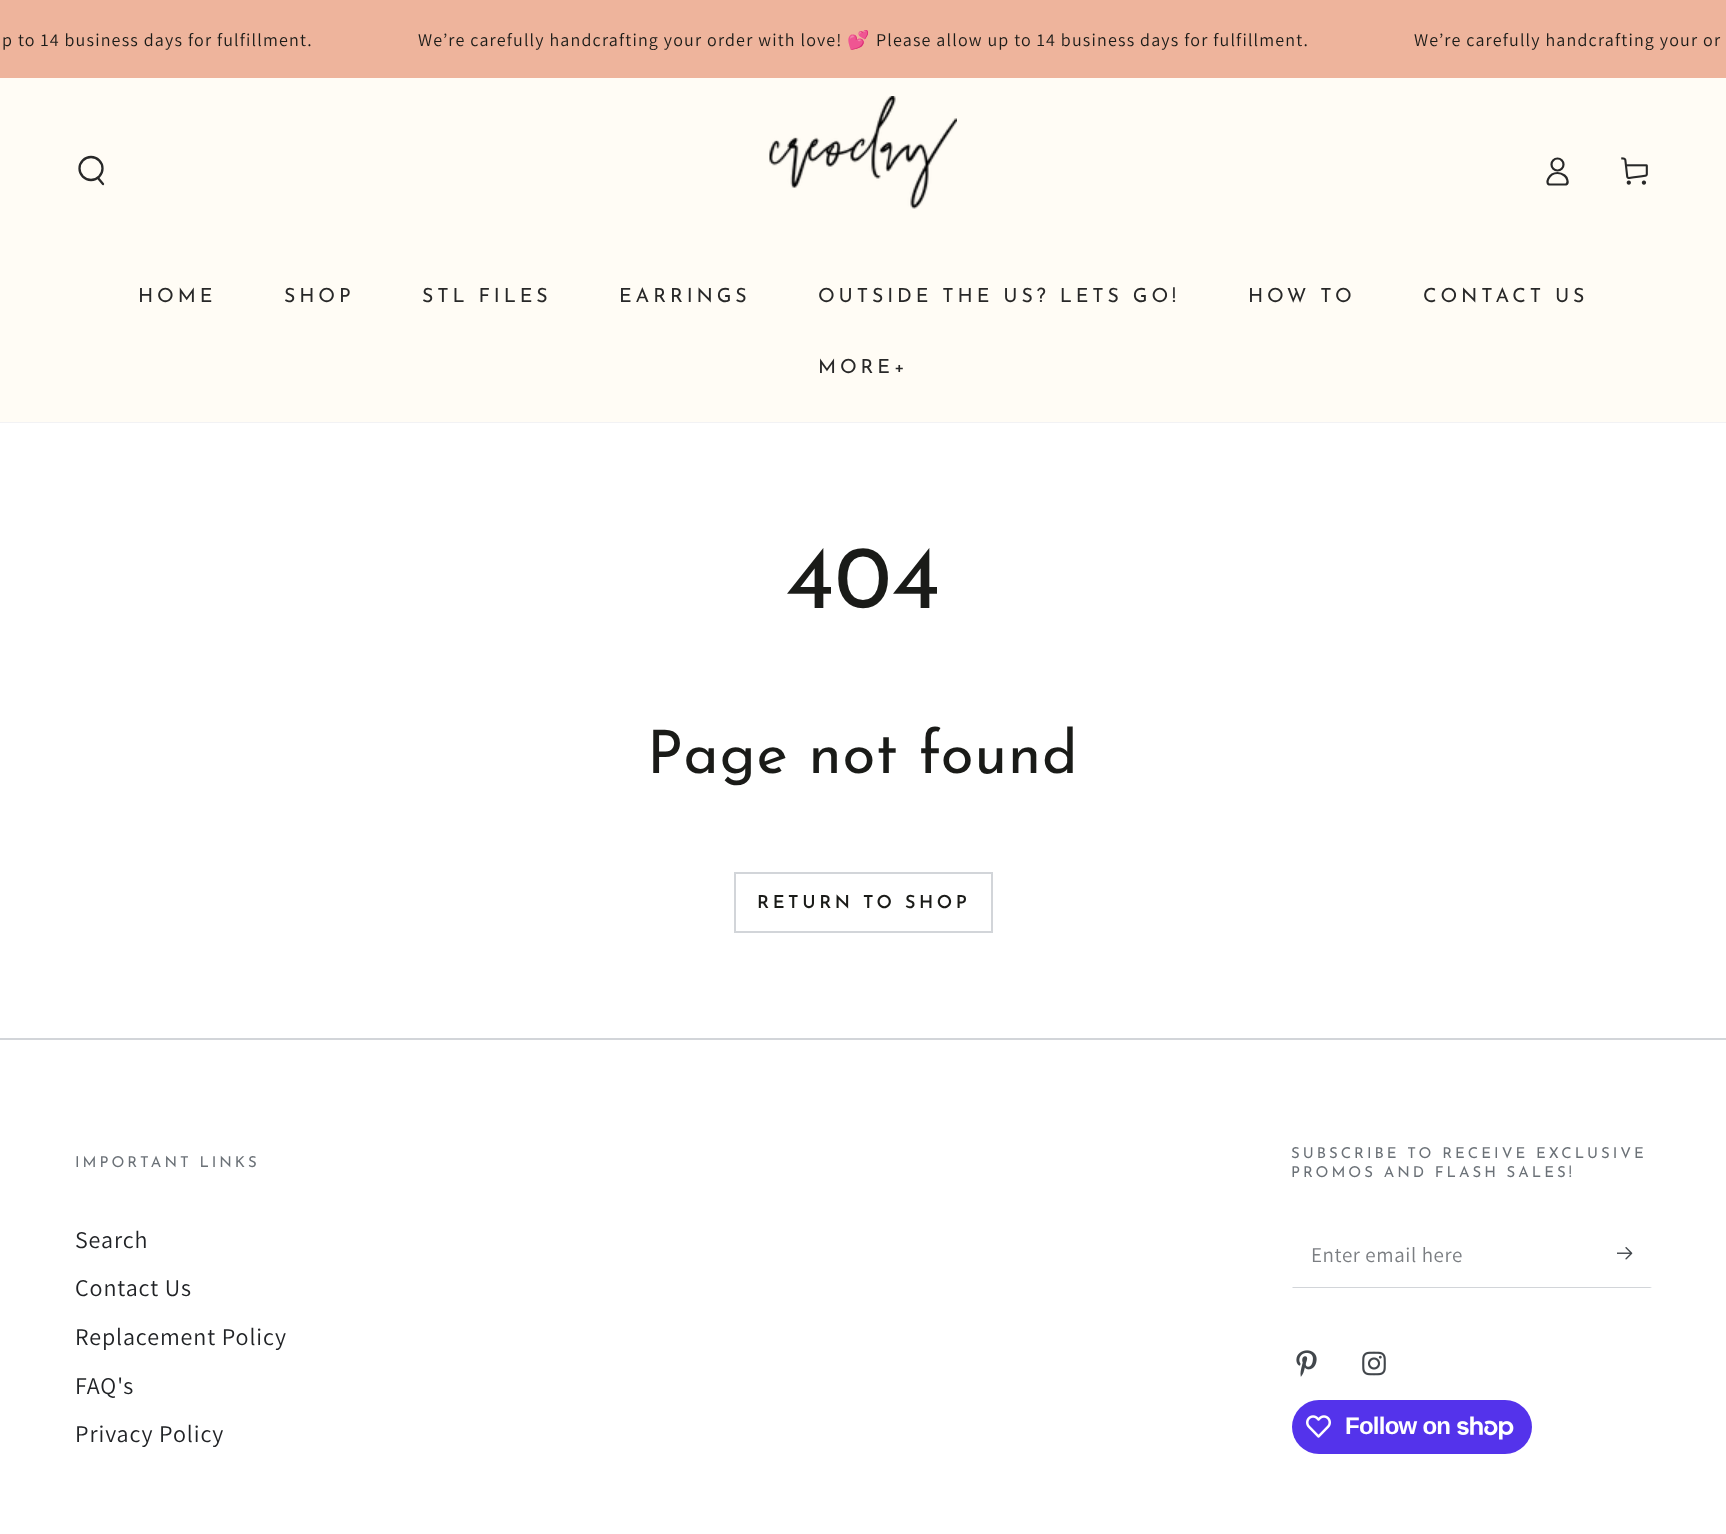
(async () => {
    const canvas = document.querySelector("canvas");
    canvas.width = 1726;
    canvas.height = 1534;
    const context = canvas.getContext("2d");
    context.miterLimit = 4;
    context.fontKerning = "normal";
    function write(s, x, y, font, color) {
        context.font = font;
        context.fillStyle = color;
        context.fillText(s, x, y);
    }
    function block(x, y, w, h, color) {
        context.fillStyle = color;
        context.fillRect(x, y, w, h);
    }
    function card(x, y, w, h, r, color) {
        context.fillStyle = color;
        context.beginPath();
        context.roundRect(x, y, w, h, r);
        context.fill();
    }
    async function photo(src, x, y, w, h) {
        const img = new Image();
        img.src = src;
        await img.decode();
        context.drawImage(img, x, y, w, h);
    }

    block(0, 0, 1726, 1534, "rgb(255, 255, 255)");
    block(0, 0, 1726, 78, "rgb(238, 180, 156)");
    context.letterSpacing = "1.17px";
    write("p to 14 business days for fulfillment.", 2, 46, "18px Assistant", "rgb(26, 27, 24)");
    write("We’re carefully handcrafting your order with love!", 418, 46, "18px Assistant", "rgb(26, 27, 24)");
    write("💕", 847, 46, "18px Noto Color Emoji", "rgb(26, 27, 24)");
    write("Please allow up to 14 business days for fulfillment.", 876, 46, "18px Assistant", "rgb(26, 27, 24)");
    write("We’re carefully handcrafting your or", 1414, 46, "18px Assistant", "rgb(26, 27, 24)");
    context.fillStyle = "rgb(242, 242, 244)";
    context.beginPath();
    context.moveTo(0, 422);
    context.lineTo(0, 423);
    context.lineTo(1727, 423);
    context.lineTo(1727, 80);
    context.lineTo(1726, 80);
    context.lineTo(1726, 422);
    context.closePath();
    context.fill();
    block(0, 78, 1726, 344, "rgb(255, 252, 245)");
    context.beginPath();
    context.arc(91, 168.5, 11.5, 0, Math.PI * 2);
    context.strokeStyle = "rgb(40, 40, 40)";
    context.lineWidth = 2.3;
    context.stroke();
    context.beginPath();
    context.moveTo(98, 178);
    context.lineTo(103, 184);
    context.lineCap = "round";
    context.stroke();
    await photo("media/1.png", 769, 96, 188, 113);
    context.beginPath();
    context.moveTo(1557.5, 173);
    context.bezierCurveTo(1548.5, 173, 1544.5, 184.5, 1550, 184.5);
    context.lineTo(1566, 184.5);
    context.bezierCurveTo(1569.5, 183, 1566.5, 177, 1564.5, 175.5);
    context.bezierCurveTo(1562.5, 174, 1560, 173, 1557.5, 173);
    context.closePath();
    context.lineWidth = 2.2;
    context.lineCap = "butt";
    context.stroke();
    context.beginPath();
    context.arc(1557.5, 164.5, 6, 0, Math.PI * 2);
    context.stroke();
    await photo("media/2.png", 1621, 157, 27, 28);
    context.letterSpacing = "3.9px";
    write("HOME", 138, 302, "19.5px Josefin Sans", "rgb(40, 40, 40)");
    write("SHOP", 284, 302, "19.5px Josefin Sans", "rgb(40, 40, 40)");
    write("STL FILES", 422, 302, "19.5px Josefin Sans", "rgb(40, 40, 40)");
    write("EARRINGS", 619, 302, "19.5px Josefin Sans", "rgb(40, 40, 40)");
    write("OUTSIDE THE US? LETS GO!", 818, 302, "19.5px Josefin Sans", "rgb(40, 40, 40)");
    write("HOW TO", 1248, 302, "19.5px Josefin Sans", "rgb(40, 40, 40)");
    write("CONTACT US", 1423, 302, "19.5px Josefin Sans", "rgb(40, 40, 40)");
    write("MORE+", 818, 373, "19.5px Josefin Sans", "rgb(40, 40, 40)");
    context.letterSpacing = "0.9px";
    write("404", 786, 608, "90px Josefin Sans", "rgb(26, 27, 24)");
    write("Page not found", 647, 773, "60px Josefin Sans", "rgb(26, 27, 24)");
    context.strokeStyle = "rgb(210, 213, 217)";
    context.lineWidth = 2;
    context.strokeRect(735, 873, 257, 59);
    context.letterSpacing = "3.6px";
    write("RETURN TO SHOP", 757, 908, "600 18px Josefin Sans", "rgb(26, 27, 24)");
    block(0, 1038, 1726, 2, "rgb(210, 213, 217)");
    context.letterSpacing = "3px";
    write("IMPORTANT LINKS", 75, 1167, "15px Josefin Sans", "rgb(107, 113, 119)");
    context.letterSpacing = "0.9px";
    write("Search", 75, 1248, "24px Assistant", "rgb(33, 35, 38)");
    write("Contact Us", 75, 1296, "24px Assistant", "rgb(33, 35, 38)");
    write("Replacement Policy", 75, 1345, "24px Assistant", "rgb(33, 35, 38)");
    write("FAQ's", 75, 1394, "24px Assistant", "rgb(33, 35, 38)");
    write("Privacy Policy", 75, 1442, "24px Assistant", "rgb(33, 35, 38)");
    context.letterSpacing = "3px";
    write("SUBSCRIBE TO RECEIVE EXCLUSIVE", 1291, 1158, "15px Josefin Sans", "rgb(107, 113, 119)");
    write("PROMOS AND FLASH SALES!", 1291, 1177, "15px Josefin Sans", "rgb(107, 113, 119)");
    context.fillStyle = "rgb(210, 213, 217)";
    context.beginPath();
    context.moveTo(1652, 1288);
    context.lineTo(1292, 1288);
    context.lineTo(1293, 1287);
    context.lineTo(1650, 1287);
    context.closePath();
    context.fill();
    context.letterSpacing = "0.6px";
    write("Enter email here", 1311, 1262, "21px Assistant", "rgb(123, 126, 130)");
    await photo("media/3.png", 1617, 1247, 16, 13);
    await photo("media/4.png", 1296, 1350, 21, 27);
    await photo("media/5.png", 1362, 1351, 24, 25);
    card(1292, 1400, 240, 54, 27, "rgb(84, 51, 235)");
    await photo("media/6.png", 1306, 1415, 25, 23);
    context.letterSpacing = "-0.75px";
    write("Follow on", 1345, 1434, "bold 24px Liberation Sans", "rgb(255, 255, 255)");
    await photo("media/7.png", 1457, 1416, 57, 24);
})();
